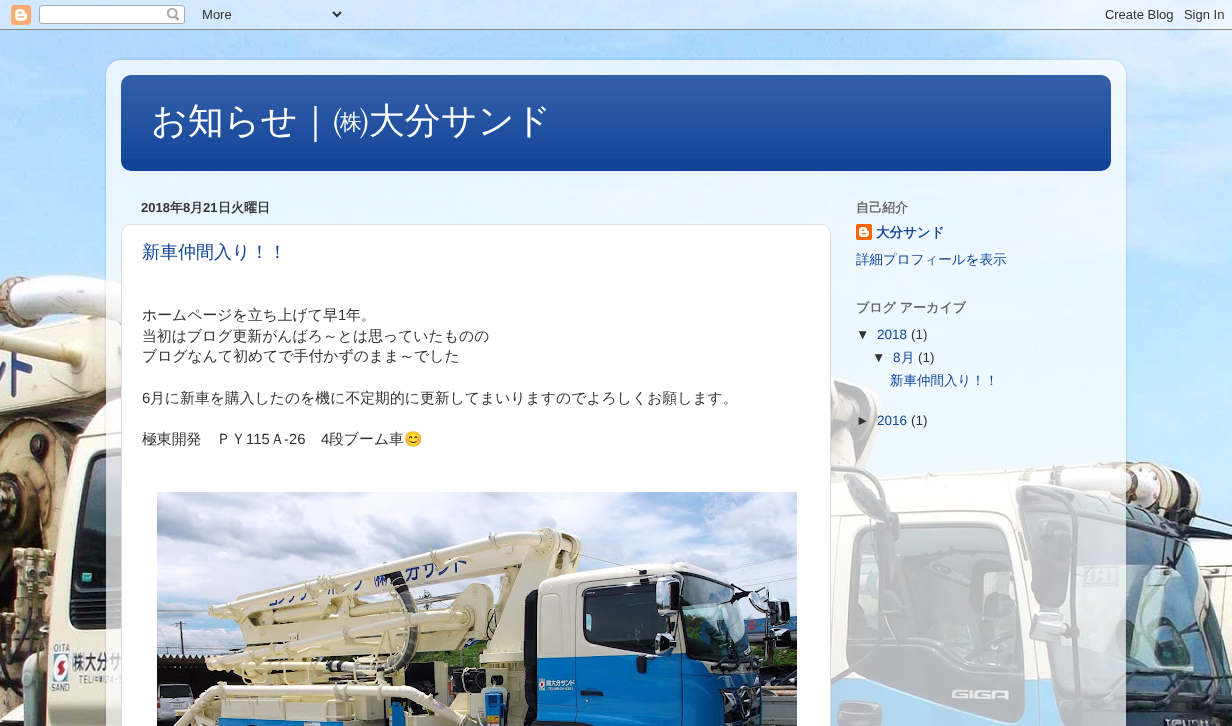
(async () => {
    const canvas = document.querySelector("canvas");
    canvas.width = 1232;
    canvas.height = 726;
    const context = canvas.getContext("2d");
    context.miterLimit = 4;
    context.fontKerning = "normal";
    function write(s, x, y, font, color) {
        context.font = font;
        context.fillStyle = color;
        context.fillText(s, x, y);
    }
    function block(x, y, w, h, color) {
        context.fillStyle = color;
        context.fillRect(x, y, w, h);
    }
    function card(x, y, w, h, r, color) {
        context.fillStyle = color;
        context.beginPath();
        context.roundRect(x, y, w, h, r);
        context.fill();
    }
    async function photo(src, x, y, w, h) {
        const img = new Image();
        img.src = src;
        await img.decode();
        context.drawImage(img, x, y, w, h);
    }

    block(0, 0, 1232, 726, "rgb(255, 255, 255)");
    await photo("media/1.png", 0, 0, 1232, 726);
    await photo("media/2.png", 0, 0, 1232, 30);
    context.save();
    context.beginPath();
    context.moveTo(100, 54);
    context.lineTo(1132, 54);
    context.lineTo(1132, 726);
    context.lineTo(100, 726);
    context.closePath();
    context.moveTo(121, 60);
    context.lineTo(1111, 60);
    context.bezierCurveTo(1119.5, 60, 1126, 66.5, 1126, 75);
    context.lineTo(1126, 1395);
    context.bezierCurveTo(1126, 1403.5, 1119.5, 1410, 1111, 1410);
    context.lineTo(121, 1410);
    context.bezierCurveTo(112.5, 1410, 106, 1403.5, 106, 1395);
    context.lineTo(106, 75);
    context.bezierCurveTo(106, 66.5, 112.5, 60, 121, 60);
    context.closePath();
    context.clip("evenodd");
    context.fillStyle = "rgba(0, 0, 0, 0.15)";
    context.filter = "blur(1.5px)";
    context.beginPath();
    context.roundRect(106, 60, 1020, 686, 15);
    context.fill();
    context.filter = "none";
    context.restore();
    await photo("media/3.png", 106, 60, 1020, 666);
    card(121, 75, 990, 96, 10, "rgb(17, 68, 153)");
    await photo("media/4.png", 121, 75, 990, 84);
    write("お知らせ｜㈱大分サンド", 151, 133, "500 36px WenQuanYi Zen Hei", "rgb(255, 255, 255)");
    write("2018", 141, 212, "bold 13px Liberation Sans", "rgb(51, 51, 51)");
    write("年", 170, 212, "bold 13px WenQuanYi Zen Hei", "rgb(51, 51, 51)");
    write("8", 183, 212, "bold 13px Liberation Sans", "rgb(51, 51, 51)");
    write("月", 190, 212, "bold 13px WenQuanYi Zen Hei", "rgb(51, 51, 51)");
    write("21", 203, 212, "bold 13px Liberation Sans", "rgb(51, 51, 51)");
    write("日火曜日", 218, 212, "bold 13px WenQuanYi Zen Hei", "rgb(51, 51, 51)");
    context.fillStyle = "rgb(255, 255, 255)";
    context.beginPath();
    context.roundRect(121.5, 224.5, 709, 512, 9.5);
    context.fill();
    context.strokeStyle = "rgb(221, 221, 221)";
    context.stroke();
    write("新車仲間入り！！", 142, 258, "500 18px WenQuanYi Zen Hei", "rgb(17, 68, 153)");
    write("ホームページを立ち上げて早", 142, 320, "500 14.85px WenQuanYi Zen Hei", "rgb(51, 51, 51)");
    write("1", 338, 320, "14.85px Liberation Sans", "rgb(51, 51, 51)");
    write("年。", 346, 320, "500 14.85px WenQuanYi Zen Hei", "rgb(51, 51, 51)");
    write("当初はブログ更新がんばろ～とは思っていたものの", 142, 341, "500 14.85px WenQuanYi Zen Hei", "rgb(51, 51, 51)");
    write("ブログなんて初めてで手付かずのまま～でした", 142, 361, "500 14.85px WenQuanYi Zen Hei", "rgb(51, 51, 51)");
    write("6", 142, 403, "14.85px Liberation Sans", "rgb(51, 51, 51)");
    write("月に新車を購入したのを機に不定期的に更新してまいりますのでよろしくお願します。", 150, 403, "500 14.85px WenQuanYi Zen Hei", "rgb(51, 51, 51)");
    write("極東開発　ＰＹ", 142, 444, "500 14.85px WenQuanYi Zen Hei", "rgb(51, 51, 51)");
    write("115", 246, 444, "14.85px Liberation Sans", "rgb(51, 51, 51)");
    write("Ａ", 270, 444, "500 14.85px WenQuanYi Zen Hei", "rgb(51, 51, 51)");
    write("-26", 284, 444, "14.85px Liberation Sans", "rgb(51, 51, 51)");
    write("4", 321, 444, "14.85px Liberation Sans", "rgb(51, 51, 51)");
    write("段ブーム車", 329, 444, "500 14.85px WenQuanYi Zen Hei", "rgb(51, 51, 51)");
    write("😊", 404, 444, "14.85px Noto Color Emoji", "rgb(51, 51, 51)");
    await photo("media/5.png", 157, 492, 640, 234);
    write("自己紹介", 856, 212, "bold 13px WenQuanYi Zen Hei", "rgb(102, 102, 102)");
    await photo("media/6.png", 856, 224, 16, 16);
    write("大分サンド", 876, 237, "bold 13.5px WenQuanYi Zen Hei", "rgb(17, 68, 153)");
    write("詳細プロフィールを表示", 856, 264, "500 13.5px WenQuanYi Zen Hei", "rgb(17, 68, 153)");
    write("ブログ アーカイブ", 856, 312, "bold 13px WenQuanYi Zen Hei", "rgb(102, 102, 102)");
    write("▼", 856, 339, "13.5px Liberation Sans", "rgb(51, 51, 51)");
    write("2018", 877, 339, "13.5px Liberation Sans", "rgb(17, 68, 153)");
    write("(1)", 911, 339, "13.5px Liberation Sans", "rgb(51, 51, 51)");
    write("▼", 872, 362, "13.5px Liberation Sans", "rgb(51, 51, 51)");
    write("8", 893, 362, "13.5px Liberation Sans", "rgb(17, 68, 153)");
    write("月", 901, 362, "500 13.5px WenQuanYi Zen Hei", "rgb(17, 68, 153)");
    write("(1)", 918, 362, "13.5px Liberation Sans", "rgb(51, 51, 51)");
    write("新車仲間入り！！", 890, 385, "500 13.5px WenQuanYi Zen Hei", "rgb(17, 68, 153)");
    write("►", 856, 425, "13.5px Liberation Sans", "rgb(51, 51, 51)");
    write("2016", 877, 425, "13.5px Liberation Sans", "rgb(17, 68, 153)");
    write("(1)", 911, 425, "13.5px Liberation Sans", "rgb(51, 51, 51)");
})();
